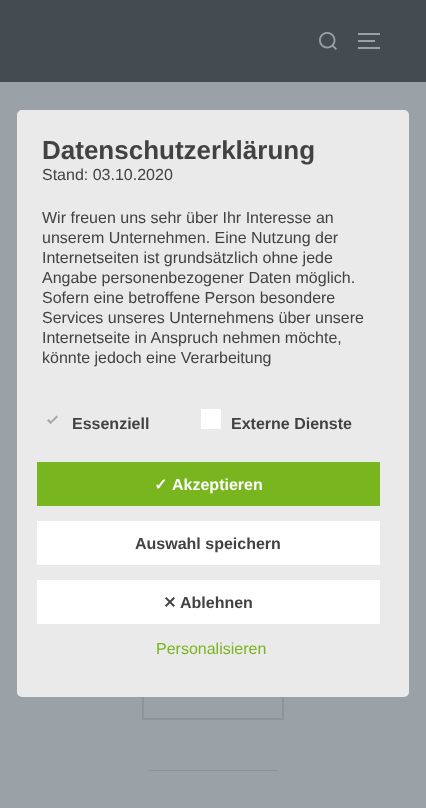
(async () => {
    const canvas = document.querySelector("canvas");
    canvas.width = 426;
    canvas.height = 808;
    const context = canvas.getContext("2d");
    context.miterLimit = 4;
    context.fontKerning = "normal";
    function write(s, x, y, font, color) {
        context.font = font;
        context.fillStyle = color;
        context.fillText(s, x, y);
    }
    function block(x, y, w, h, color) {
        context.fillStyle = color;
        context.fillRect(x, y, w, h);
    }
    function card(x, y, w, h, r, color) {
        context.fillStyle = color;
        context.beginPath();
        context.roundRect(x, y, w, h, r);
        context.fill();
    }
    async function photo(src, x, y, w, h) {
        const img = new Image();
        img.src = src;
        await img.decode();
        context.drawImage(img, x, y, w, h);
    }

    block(0, 0, 426, 808, "rgb(155, 162, 167)");
    block(0, 0, 426, 82, "rgb(68, 76, 81)");
    await photo("media/1.png", 319, 32, 18, 18);
    block(358, 33, 22, 2, "rgb(155, 162, 167)");
    block(358, 40, 17, 2, "rgb(155, 162, 167)");
    block(358, 47, 22, 2, "rgb(155, 162, 167)");
    context.strokeStyle = "rgb(142, 149, 154)";
    context.lineWidth = 2;
    context.strokeRect(143, 675, 140, 44);
    block(148, 770, 130, 1, "rgb(142, 149, 154)");
    card(17, 110, 392, 587, 5, "rgb(234, 234, 234)");
    write("Datenschutzerklärung", 42, 159, "bold 26px Liberation Sans", "rgb(66, 66, 66)");
    write("Stand: 03.10.2020", 42, 180, "16px Liberation Sans", "rgb(66, 66, 66)");
    write("Wir freuen uns sehr über Ihr Interesse an", 42, 223, "16px Liberation Sans", "rgb(66, 66, 66)");
    write("unserem Unternehmen. Eine Nutzung der", 42, 243, "16px Liberation Sans", "rgb(66, 66, 66)");
    write("Internetseiten ist grundsätzlich ohne jede", 42, 263, "16px Liberation Sans", "rgb(66, 66, 66)");
    write("Angabe personenbezogener Daten möglich.", 42, 283, "16px Liberation Sans", "rgb(66, 66, 66)");
    write("Sofern eine betroffene Person besondere", 42, 303, "16px Liberation Sans", "rgb(66, 66, 66)");
    write("Services unseres Unternehmens über unsere", 42, 323, "16px Liberation Sans", "rgb(66, 66, 66)");
    write("Internetseite in Anspruch nehmen möchte,", 42, 343, "16px Liberation Sans", "rgb(66, 66, 66)");
    write("könnte jedoch eine Verarbeitung", 42, 363, "16px Liberation Sans", "rgb(66, 66, 66)");
    context.fillStyle = "rgb(167, 167, 167)";
    context.beginPath();
    context.moveTo(56.5, 415.5);
    context.lineTo(58, 417);
    context.lineTo(50.5, 424);
    context.lineTo(49.5, 422.5);
    context.closePath();
    context.fill();
    context.beginPath();
    context.moveTo(48.5, 419);
    context.lineTo(52, 422.5);
    context.lineTo(50.5, 424);
    context.lineTo(47, 420.5);
    context.closePath();
    context.fill();
    write("Essenziell", 72, 429, "bold 16px Liberation Sans", "rgb(66, 66, 66)");
    block(201, 409, 20, 20, "rgb(255, 255, 255)");
    write("Externe Dienste", 231, 429, "bold 16px Liberation Sans", "rgb(66, 66, 66)");
    block(37, 462, 343, 44, "rgb(121, 181, 31)");
    write("✓", 154, 490, "bold 16px DejaVu Sans", "rgb(255, 255, 255)");
    write("Akzeptieren", 172, 490, "bold 16px Liberation Sans", "rgb(255, 255, 255)");
    block(37, 521, 343, 44, "rgb(255, 255, 255)");
    write("Auswahl speichern", 135, 549, "bold 16px Liberation Sans", "rgb(66, 66, 66)");
    block(37, 580, 343, 44, "rgb(255, 255, 255)");
    write("✕", 163, 608, "bold 16px DejaVu Sans", "rgb(66, 66, 66)");
    write("Ablehnen", 180, 608, "bold 16px Liberation Sans", "rgb(66, 66, 66)");
    write("Personalisieren", 156, 654, "16px Liberation Sans", "rgb(121, 181, 31)");
})();
